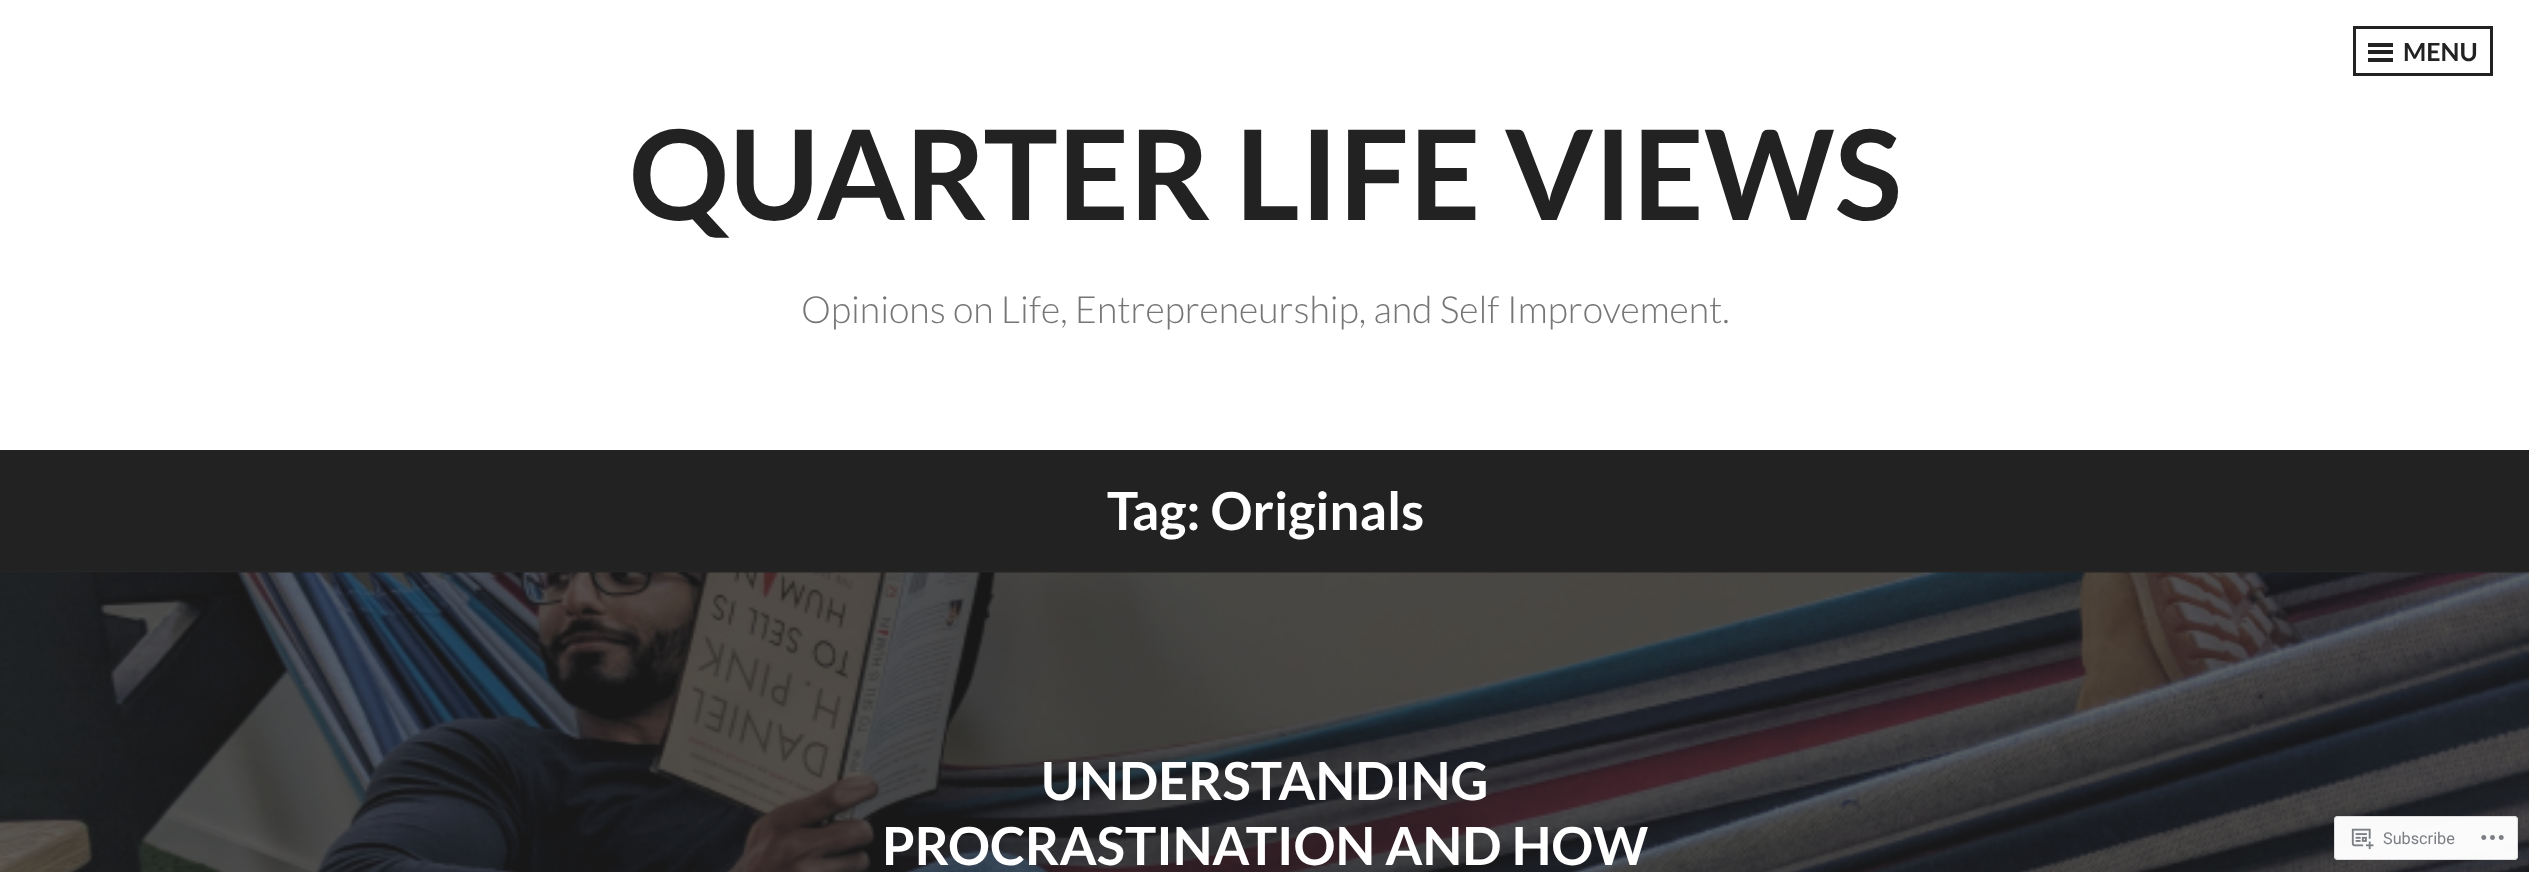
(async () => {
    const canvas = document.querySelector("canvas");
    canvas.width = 2529;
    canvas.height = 872;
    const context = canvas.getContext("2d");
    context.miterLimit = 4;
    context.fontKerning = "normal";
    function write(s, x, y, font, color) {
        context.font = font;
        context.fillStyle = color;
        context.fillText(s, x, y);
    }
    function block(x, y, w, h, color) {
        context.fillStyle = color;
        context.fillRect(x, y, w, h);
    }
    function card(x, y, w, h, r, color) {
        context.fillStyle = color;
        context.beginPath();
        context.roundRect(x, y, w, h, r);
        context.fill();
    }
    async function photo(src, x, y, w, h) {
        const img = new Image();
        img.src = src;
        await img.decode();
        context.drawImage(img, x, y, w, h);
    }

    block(0, 0, 2529, 872, "rgb(255, 255, 255)");
    context.strokeStyle = "rgb(34, 34, 34)";
    context.lineWidth = 3;
    context.strokeRect(2354.5, 27.5, 137, 47);
    block(2368, 50, 25, 4, "rgb(34, 34, 34)");
    block(2368, 43, 25, 4, "rgb(34, 34, 34)");
    block(2368, 58, 25, 4, "rgb(34, 34, 34)");
    write("MENU", 2403, 61, "bold 25px Lato", "rgb(34, 34, 34)");
    write("QUARTER LIFE VIEWS", 629, 220, "bold 124.9px Lato", "rgb(34, 34, 34)");
    write("Opinions on Life, Entrepreneurship, and Self Improvement.", 801, 323, "300 37.5px Lato", "rgb(118, 118, 118)");
    block(0, 450, 2529, 422, "rgb(34, 34, 34)");
    block(0, 571, 2529, 1, "rgb(37, 37, 37)");
    write("Tag: Originals", 1107, 530, "bold 52.5px Lato", "rgb(255, 255, 255)");
    await photo("media/1.png", 0, 572, 2529, 300);
    write("UNDERSTANDING", 1041, 800, "bold 52.5px Lato", "rgb(255, 255, 255)");
    write("PROCRASTINATION AND HOW", 882, 865, "bold 52.5px Lato", "rgb(255, 255, 255)");
    card(2334, 816, 184, 44, 4, "rgba(255, 255, 255, 0.98)");
    context.beginPath();
    context.roundRect(2334.5, 816.5, 183, 43, 3.5);
    context.strokeStyle = "rgba(220, 220, 222, 0.98)";
    context.lineWidth = 1;
    context.stroke();
    await photo("media/2.png", 2351, 828, 23, 22);
    write("Subscribe", 2383, 844, "16.25px Roboto", "rgb(123, 127, 132)");
    await photo("media/3.png", 2481, 835, 23, 5);
})();
